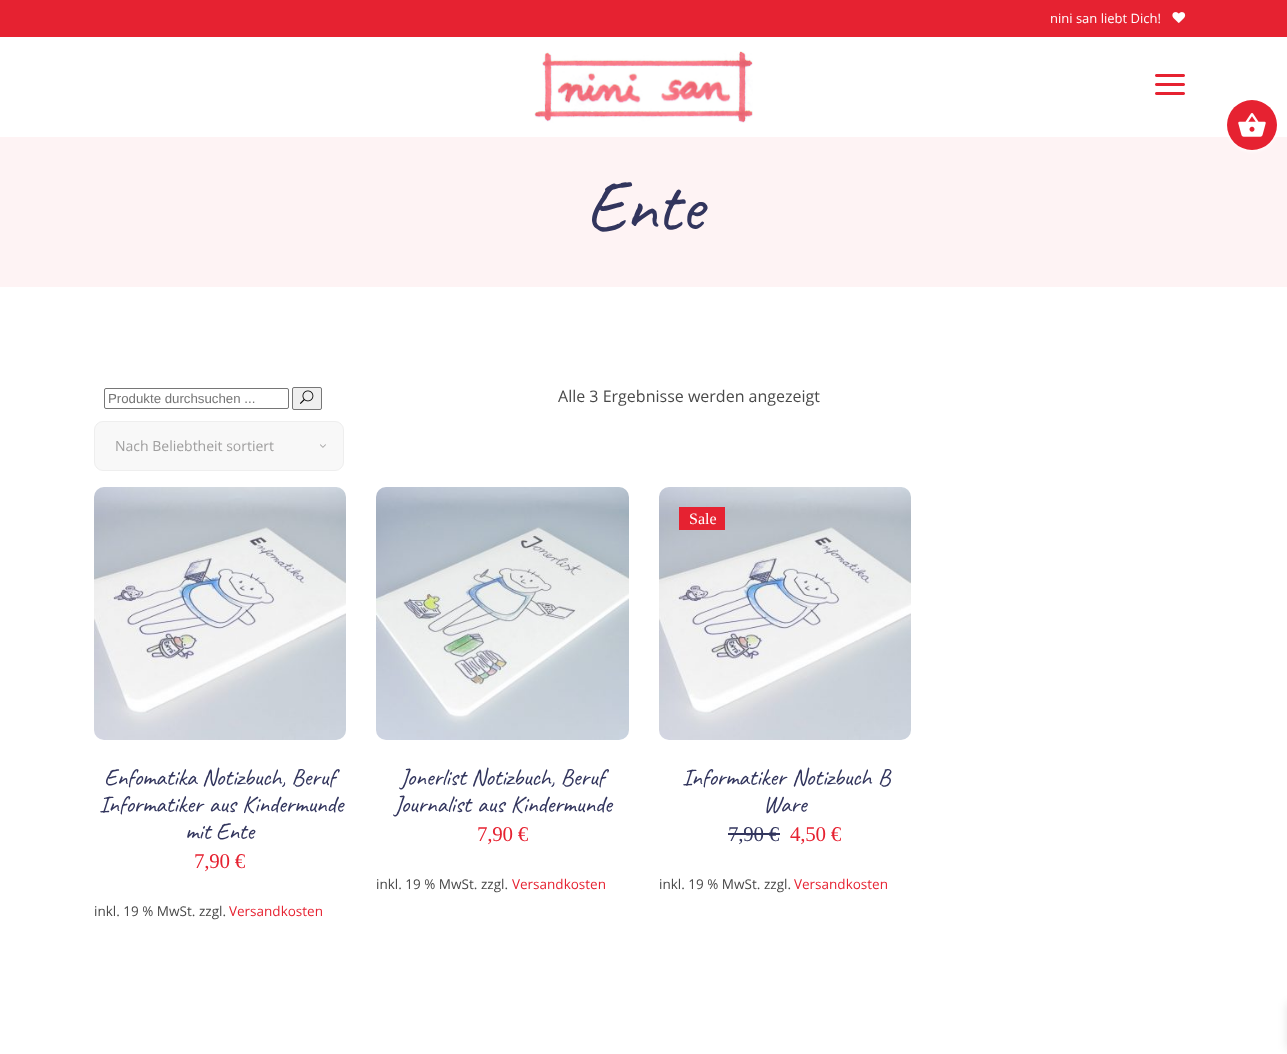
(async () => {
    const canvas = document.querySelector("canvas");
    canvas.width = 1287;
    canvas.height = 1054;
    const context = canvas.getContext("2d");
    context.miterLimit = 4;
    context.fontKerning = "normal";
    function write(s, x, y, font, color) {
        context.font = font;
        context.fillStyle = color;
        context.fillText(s, x, y);
    }
    function block(x, y, w, h, color) {
        context.fillStyle = color;
        context.fillRect(x, y, w, h);
    }
    async function photo(src, x, y, w, h) {
        const img = new Image();
        img.src = src;
        await img.decode();
        context.drawImage(img, x, y, w, h);
    }

    block(0, 0, 1287, 1054, "rgb(255, 255, 255)");
    block(0, 0, 1287, 37, "rgb(230, 34, 49)");
    write("nini san liebt Dich!", 1050, 23, "13px Open Sans", "rgb(255, 255, 255)");
    await photo("media/1.png", 1172, 12, 14, 11);
    await photo("media/2.png", 534, 51, 219, 72);
    await photo("media/3.png", 1155, 74, 30, 21);
    block(0, 137, 1287, 150, "rgb(254, 243, 244)");
    context.letterSpacing = "-0.5px";
    write("Ente", 586, 230, "73px Caveat", "rgb(50, 53, 93)");
    context.beginPath();
    context.roundRect(104.5, 388.5, 184, 20, 1.5);
    context.strokeStyle = "rgb(118, 118, 118)";
    context.stroke();
    context.letterSpacing = "0px";
    write("Produkte durchsuchen ...", 108, 403, "13.25px Liberation Sans", "rgb(117, 117, 117)");
    context.fillStyle = "rgb(239, 239, 239)";
    context.beginPath();
    context.roundRect(292.5, 387.5, 29, 22, 1.5);
    context.fill();
    context.stroke();
    await photo("media/4.png", 300, 390, 14, 14);
    write("Alle 3 Ergebnisse werden angezeigt", 558, 402, "16px Open Sans", "rgb(73, 73, 73)");
    context.fillStyle = "rgb(248, 248, 248)";
    context.beginPath();
    context.roundRect(94.5, 421.5, 249, 49, 8.5);
    context.fill();
    context.strokeStyle = "rgb(238, 238, 238)";
    context.stroke();
    write("Nach Beliebtheit sortiert", 115, 451, "14px Open Sans", "rgb(159, 158, 158)");
    await photo("media/5.png", 320, 444, 6, 4);
    await photo("media/6.png", 94, 487, 252, 253);
    context.letterSpacing = "-0.25px";
    write("Enfomatika Notizbuch, Beruf", 104, 785, "24px Caveat", "rgb(50, 53, 93)");
    context.wordSpacing = "1px";
    write("Informatiker aus Kindermunde", 99, 812, "24px Caveat", "rgb(50, 53, 93)");
    context.wordSpacing = "0px";
    write("mit Ente", 185, 839, "24px Caveat", "rgb(50, 53, 93)");
    write("7,90 €", 194, 868, "21px Liberation Serif", "rgb(230, 34, 49)");
    context.letterSpacing = "0px";
    write("inkl. 19 % MwSt.", 94, 916, "13.5px Open Sans", "rgb(73, 73, 73)");
    write("zzgl.", 199, 916, "13.5px Open Sans", "rgb(73, 73, 73)");
    write("Versandkosten", 229, 916, "13.5px Open Sans", "rgb(230, 34, 49)");
    await photo("media/7.png", 376, 487, 253, 253);
    context.letterSpacing = "-0.25px";
    write("Jonerlist Notizbuch, Beruf", 400, 785, "24px Caveat", "rgb(50, 53, 93)");
    context.wordSpacing = "1px";
    write("Journalist aus Kindermunde", 394, 812, "24px Caveat", "rgb(50, 53, 93)");
    context.wordSpacing = "0px";
    write("7,90 €", 477, 841, "21px Liberation Serif", "rgb(230, 34, 49)");
    context.letterSpacing = "0px";
    write("inkl. 19 % MwSt.", 376, 889, "13.5px Open Sans", "rgb(73, 73, 73)");
    write("zzgl.", 481, 889, "13.5px Open Sans", "rgb(73, 73, 73)");
    write("Versandkosten", 512, 889, "13.5px Open Sans", "rgb(230, 34, 49)");
    await photo("media/8.png", 659, 487, 252, 253);
    block(679, 507, 46, 23, "rgb(230, 34, 49)");
    write("Sale", 689, 524, "16px Liberation Serif", "rgb(255, 255, 255)");
    context.letterSpacing = "-0.25px";
    context.wordSpacing = "1px";
    write("Informatiker Notizbuch B", 682, 785, "24px Caveat", "rgb(50, 53, 93)");
    context.wordSpacing = "0px";
    write("Ware", 763, 812, "24px Caveat", "rgb(50, 53, 93)");
    write("7,90 €", 728, 841, "21px Liberation Serif", "rgb(50, 53, 93)");
    block(728, 833, 52, 2, "rgb(50, 53, 93)");
    write("4,50 €", 790, 841, "21px Liberation Serif", "rgb(230, 34, 49)");
    context.letterSpacing = "0px";
    write("inkl. 19 % MwSt.", 659, 889, "13.5px Open Sans", "rgb(73, 73, 73)");
    write("zzgl.", 764, 889, "13.5px Open Sans", "rgb(73, 73, 73)");
    write("Versandkosten", 794, 889, "13.5px Open Sans", "rgb(230, 34, 49)");
    context.fillStyle = "rgb(255, 255, 255)";
    context.filter = "blur(2px)";
    context.beginPath();
    context.roundRect(1227, 101, 50, 50, 25);
    context.fill();
    context.filter = "none";
    context.fillStyle = "rgb(230, 34, 49)";
    context.beginPath();
    context.arc(1252, 125, 25, 0, Math.PI * 2);
    context.fill();
    await photo("media/9.png", 1238, 113, 28, 24);
    context.fillStyle = "rgba(0, 0, 0, 0.1)";
    context.filter = "blur(5px)";
    context.beginPath();
    context.rect(1287, 1003, 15, 46);
    context.fill();
    context.filter = "none";
})();
